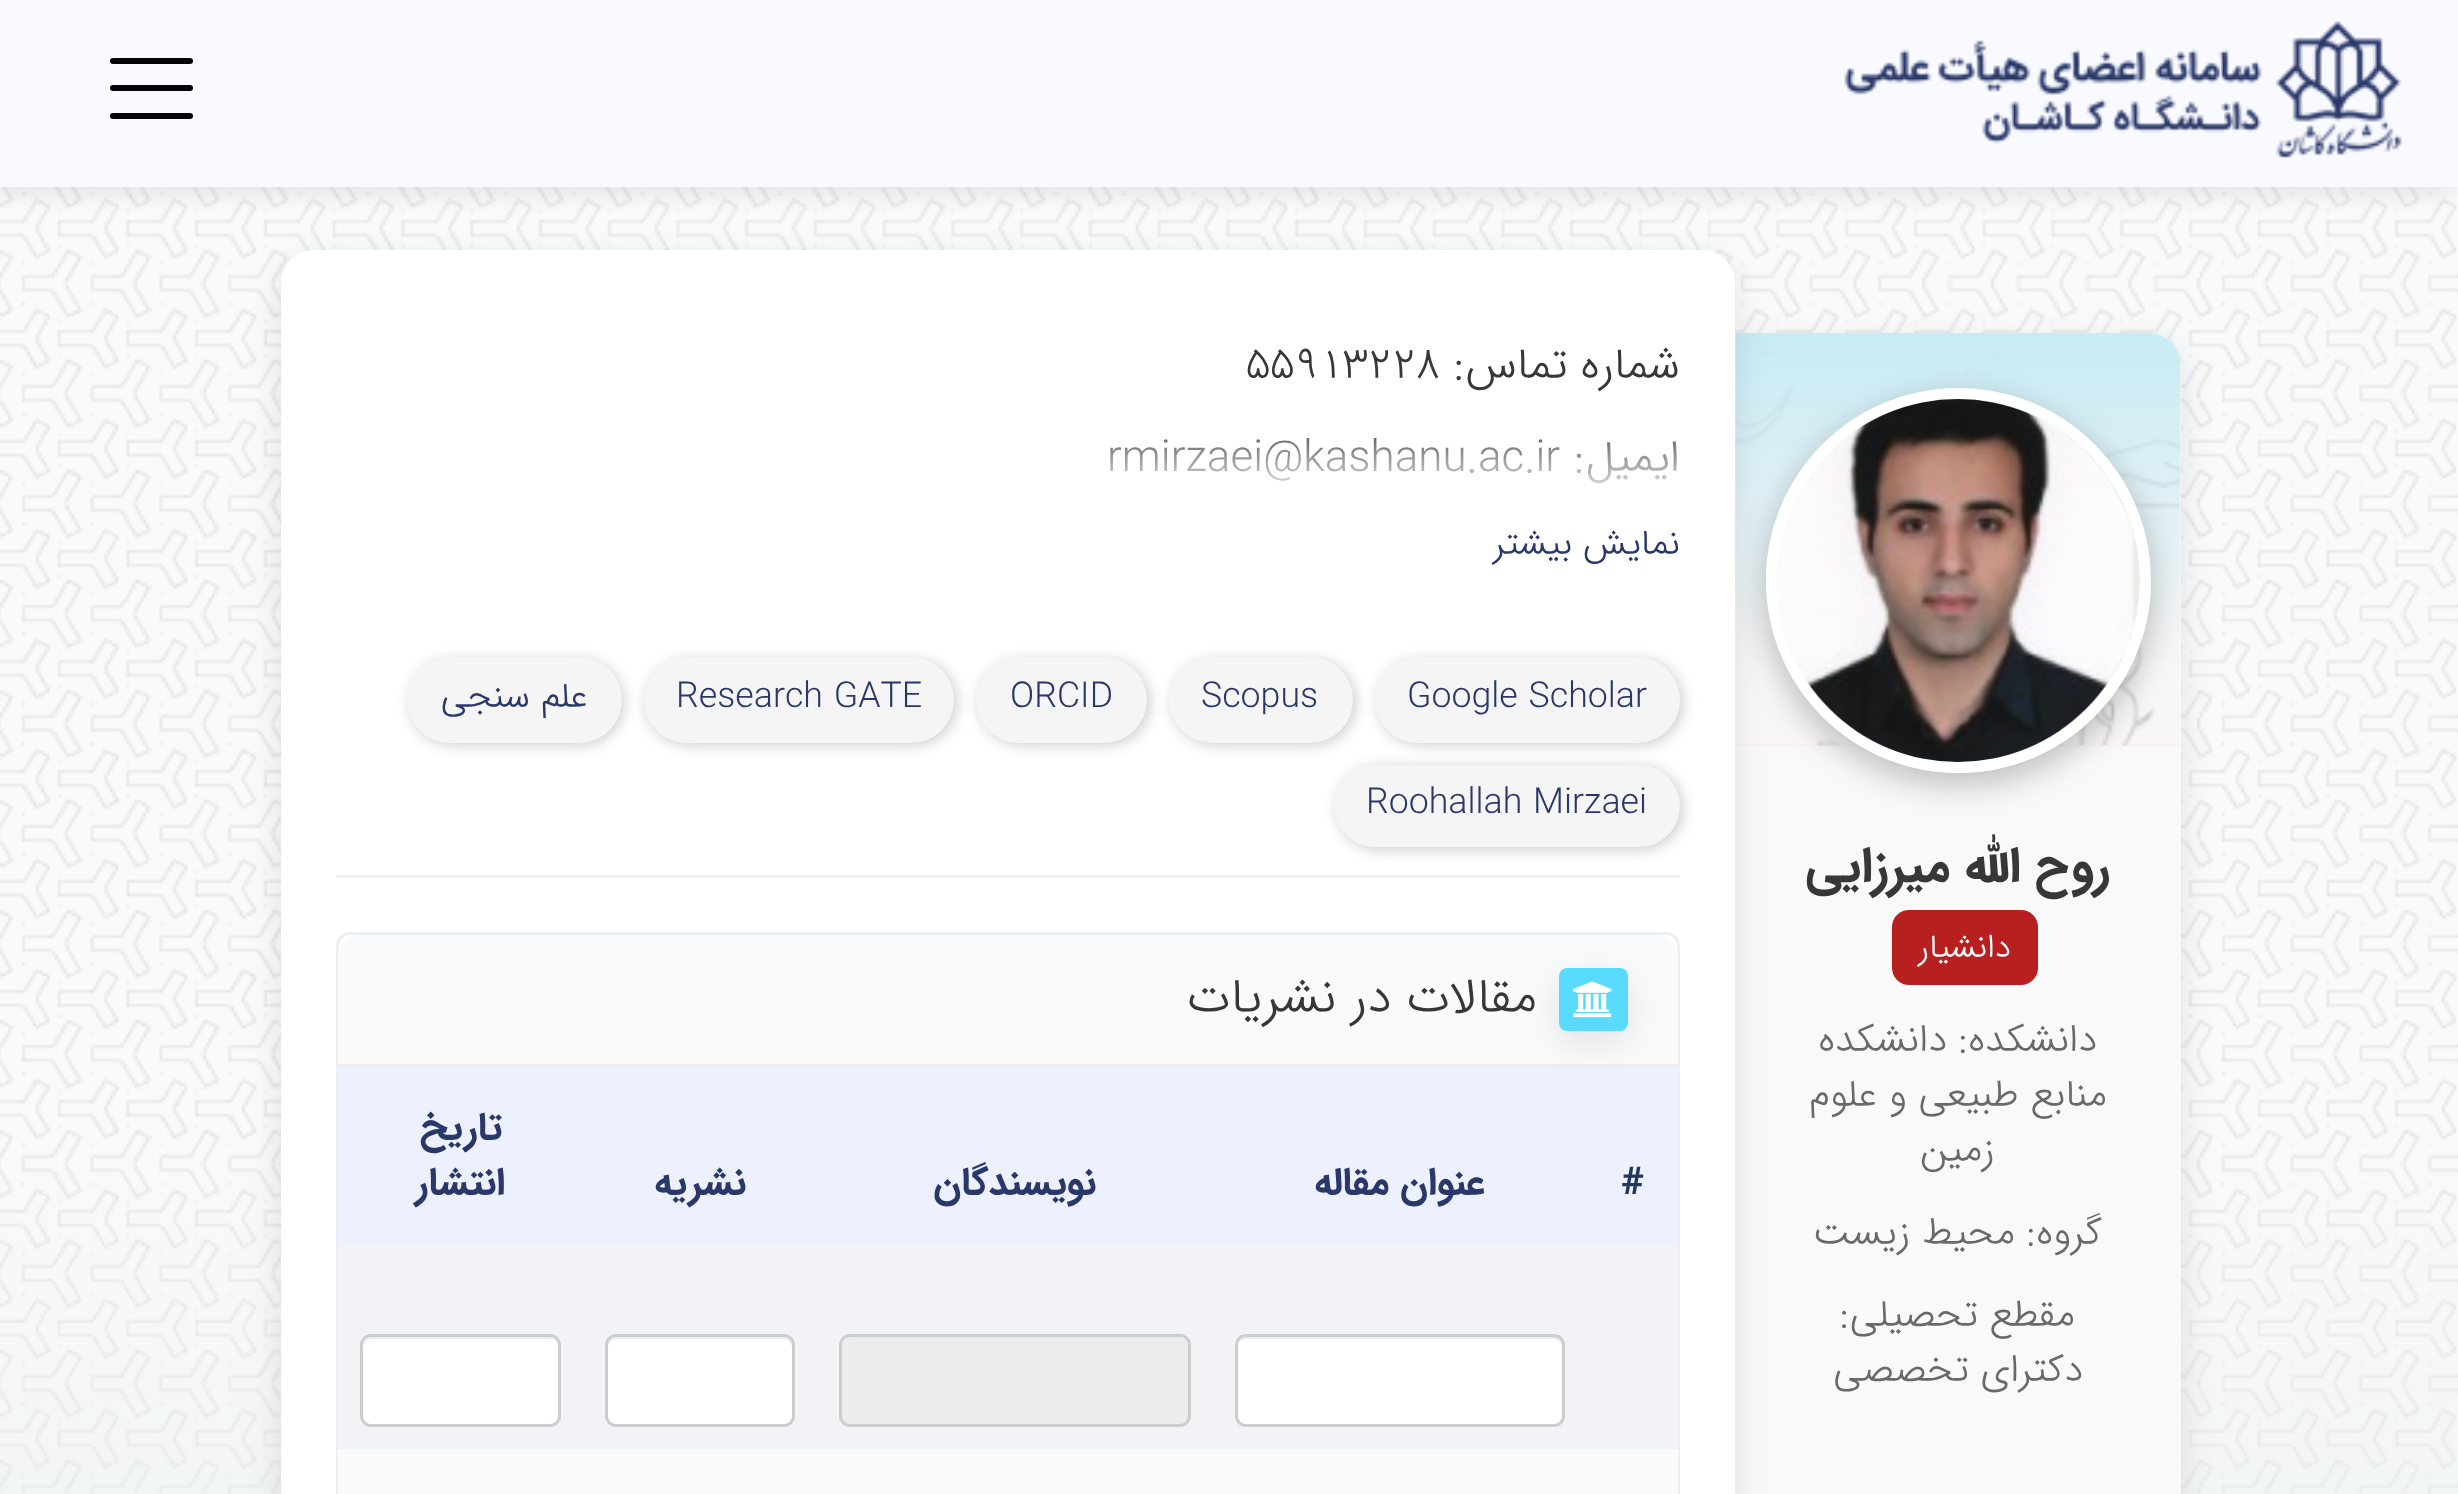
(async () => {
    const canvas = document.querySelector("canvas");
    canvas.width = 2458;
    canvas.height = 1494;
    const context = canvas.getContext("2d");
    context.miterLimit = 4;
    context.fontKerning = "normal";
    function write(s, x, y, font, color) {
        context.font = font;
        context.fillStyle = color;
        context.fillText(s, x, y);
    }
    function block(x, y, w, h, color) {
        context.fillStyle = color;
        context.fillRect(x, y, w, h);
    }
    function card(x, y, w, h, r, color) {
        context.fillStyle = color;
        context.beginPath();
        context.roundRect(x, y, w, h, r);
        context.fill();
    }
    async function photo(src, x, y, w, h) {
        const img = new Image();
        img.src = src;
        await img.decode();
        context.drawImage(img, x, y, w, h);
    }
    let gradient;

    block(0, 0, 2458, 1494, "rgb(255, 255, 255)");
    await photo("media/2.png", 0, 187, 2458, 1307);
    context.fillStyle = "rgba(5, 5, 5, 0.1)";
    context.filter = "blur(11px)";
    context.beginPath();
    context.rect(-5, 6, 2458, 187);
    context.fill();
    context.filter = "none";
    block(0, 0, 2458, 187, "rgb(249, 250, 255)");
    await photo("media/1.png", 1844, 21, 558, 137);
    card(110, 58, 83, 6, 3, "rgb(5, 5, 5)");
    card(110, 85, 83, 6, 3, "rgb(5, 5, 5)");
    card(110, 113, 83, 6, 3, "rgb(5, 5, 5)");
    context.fillStyle = "rgba(5, 5, 5, 0.1)";
    context.filter = "blur(16.5px)";
    context.beginPath();
    context.roundRect(1735, 344, 446, 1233, 33);
    context.fill();
    context.filter = "none";
    context.fillStyle = "rgb(249, 249, 249)";
    context.beginPath();
    context.moveTo(1735, 333);
    context.lineTo(2148, 333);
    context.bezierCurveTo(2166, 333, 2181, 348, 2181, 366);
    context.lineTo(2181, 1494);
    context.bezierCurveTo(2181, 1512, 2166, 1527, 2148, 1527);
    context.lineTo(1735, 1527);
    context.closePath();
    context.fill();
    await photo("media/3.png", 1735, 333, 446, 413);
    context.save();
    context.beginPath();
    context.moveTo(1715, 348);
    context.lineTo(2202, 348);
    context.lineTo(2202, 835);
    context.lineTo(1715, 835);
    context.closePath();
    context.moveTo(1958.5, 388);
    context.bezierCurveTo(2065, 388, 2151, 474, 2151, 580.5);
    context.bezierCurveTo(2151, 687, 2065, 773, 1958.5, 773);
    context.bezierCurveTo(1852, 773, 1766, 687, 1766, 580.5);
    context.bezierCurveTo(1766, 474, 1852, 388, 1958.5, 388);
    context.closePath();
    context.clip("evenodd");
    context.fillStyle = "rgba(5, 5, 5, 0.25)";
    context.filter = "blur(16.5px)";
    context.beginPath();
    context.roundRect(1766, 399, 385, 385, 192.5);
    context.fill();
    context.filter = "none";
    context.restore();
    context.beginPath();
    context.arc(1958.5, 580.5, 187, 0, Math.PI * 2);
    context.strokeStyle = "rgb(255, 255, 255)";
    context.lineWidth = 11;
    context.stroke();
    await photo("media/4.png", 1777, 399, 363, 363);
    context.direction = "rtl";
    write("روح الله میرزایی", 2110, 881, "bold 49.5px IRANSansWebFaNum", "rgb(55, 55, 55)");
    card(1892, 910, 146, 75, 17, "rgb(184, 32, 32)");
    write("دانشیار", 2011, 957, "300 33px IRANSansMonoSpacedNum", "rgb(255, 255, 255)");
    write("دانشکده:", 2097, 1051, "300 38.5px IRANSansMonoSpacedNum", "rgb(105, 105, 105)");
    write("دانشکده", 1947, 1051, "300 38.5px IRANSansMonoSpacedNum", "rgb(105, 105, 105)");
    write("منابع طبیعی و علوم", 2107, 1106, "300 38.5px IRANSansMonoSpacedNum", "rgb(105, 105, 105)");
    write("زمین", 1995, 1161, "300 38.5px IRANSansMonoSpacedNum", "rgb(105, 105, 105)");
    write("گروه:", 2102, 1244, "300 38.5px IRANSansMonoSpacedNum", "rgb(105, 105, 105)");
    write("محیط زیست", 2015, 1244, "300 38.5px IRANSansMonoSpacedNum", "rgb(105, 105, 105)");
    write("مقطع تحصیلی:", 2075, 1326, "300 38.5px IRANSansMonoSpacedNum", "rgb(105, 105, 105)");
    write("دکترای تخصصی", 2083, 1381, "300 38.5px IRANSansMonoSpacedNum", "rgb(105, 105, 105)");
    context.fillStyle = "rgba(5, 5, 5, 0.1)";
    context.filter = "blur(16.5px)";
    context.beginPath();
    context.roundRect(281, 261, 1454, 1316, 33);
    context.fill();
    context.filter = "none";
    card(281, 250, 1454, 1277, 33, "rgb(255, 255, 255)");
    write("شماره تماس:", 1680, 378, "300 44px IRANSansMonoSpacedNum", "rgb(55, 55, 55)");
    context.direction = "ltr";
    write("55913228", 1246, 378, "300 44px IRANSansMonoSpacedNum", "rgb(55, 55, 55)");
    context.direction = "rtl";
    write("ایمیل:", 1680, 471, "300 44px IRANSansMonoSpacedNum", "rgb(55, 55, 55)");
    context.direction = "ltr";
    write("rmirzaei@kashanu.ac.ir", 1107, 471, "300 44px IRANSansMonoSpacedNum", "rgb(55, 55, 55)");
    gradient = context.createLinearGradient(1008, 415, 1008, 503);
    gradient.addColorStop(0, "rgba(255, 255, 255, 0)");
    gradient.addColorStop(1, "rgb(255, 255, 255)");
    context.fillStyle = gradient;
    context.fillRect(1110, 438, 567, 46);
    context.direction = "rtl";
    write("نمایش بیشتر", 1680, 554, "300 35.75px IRANSansMonoSpacedNum", "rgb(41, 56, 105)");
    block(336, 875, 1344, 3, "rgb(238, 238, 238)");
    context.fillStyle = "rgb(205, 205, 205)";
    context.filter = "blur(7px)";
    context.beginPath();
    context.roundRect(1378, 660, 305, 85, 42.5);
    context.fill();
    context.filter = "none";
    card(1375, 657, 305, 86, 43, "rgb(245, 245, 245)");
    context.direction = "ltr";
    write("Google Scholar", 1407, 707, "300 35.75px IRANSansMonoSpacedNum", "rgb(41, 56, 105)");
    context.fillStyle = "rgb(205, 205, 205)";
    context.filter = "blur(7px)";
    context.beginPath();
    context.roundRect(1172, 660, 184, 85, 42.5);
    context.fill();
    context.filter = "none";
    card(1169, 657, 184, 86, 43, "rgb(245, 245, 245)");
    write("Scopus", 1201, 707, "300 35.75px IRANSansMonoSpacedNum", "rgb(41, 56, 105)");
    context.fillStyle = "rgb(205, 205, 205)";
    context.filter = "blur(7px)";
    context.beginPath();
    context.roundRect(979, 660, 171, 85, 42.5);
    context.fill();
    context.filter = "none";
    card(976, 657, 171, 86, 43, "rgb(245, 245, 245)");
    write("ORCID", 1010, 707, "300 35.75px IRANSansMonoSpacedNum", "rgb(41, 56, 105)");
    context.fillStyle = "rgb(205, 205, 205)";
    context.filter = "blur(7px)";
    context.beginPath();
    context.roundRect(646, 660, 311, 85, 42.5);
    context.fill();
    context.filter = "none";
    card(644, 657, 310, 86, 43, "rgb(245, 245, 245)");
    write("Research GATE", 676, 707, "300 35.75px IRANSansMonoSpacedNum", "rgb(41, 56, 105)");
    context.fillStyle = "rgb(205, 205, 205)";
    context.filter = "blur(7px)";
    context.beginPath();
    context.roundRect(410, 660, 214, 85, 42.5);
    context.fill();
    context.filter = "none";
    card(407, 657, 215, 86, 43, "rgb(245, 245, 245)");
    context.direction = "rtl";
    write("علم سنجی", 588, 707, "300 35.75px IRANSansMonoSpacedNum", "rgb(41, 56, 105)");
    context.fillStyle = "rgb(205, 205, 205)";
    context.filter = "blur(7px)";
    context.beginPath();
    context.roundRect(1337, 767, 346, 83, 41.5);
    context.fill();
    context.filter = "none";
    card(1334, 765, 346, 82, 41, "rgb(245, 245, 245)");
    context.direction = "ltr";
    write("Roohallah Mirzaei", 1366, 813, "300 35.75px IRANSansMonoSpacedNum", "rgb(41, 56, 105)");
    context.beginPath();
    context.roundRect(337.5, 933.5, 1341, 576, 12.5);
    context.strokeStyle = "rgb(238, 238, 238)";
    context.lineWidth = 3;
    context.stroke();
    context.fillStyle = "rgb(249, 250, 251)";
    context.beginPath();
    context.roundRect(338, 935, 1340, 132, [22, 22, 0, 0]);
    context.fill();
    block(338, 1064, 1340, 3, "rgb(238, 238, 238)");
    block(338, 1067, 1340, 176, "rgb(236, 240, 255)");
    context.save();
    context.beginPath();
    context.moveTo(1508, 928);
    context.lineTo(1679, 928);
    context.lineTo(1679, 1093);
    context.lineTo(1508, 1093);
    context.closePath();
    context.moveTo(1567, 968);
    context.lineTo(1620, 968);
    context.bezierCurveTo(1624.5, 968, 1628, 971.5, 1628, 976);
    context.lineTo(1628, 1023);
    context.bezierCurveTo(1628, 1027.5, 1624.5, 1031, 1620, 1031);
    context.lineTo(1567, 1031);
    context.bezierCurveTo(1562.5, 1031, 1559, 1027.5, 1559, 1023);
    context.lineTo(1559, 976);
    context.bezierCurveTo(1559, 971.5, 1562.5, 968, 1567, 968);
    context.closePath();
    context.clip("evenodd");
    context.fillStyle = "rgba(5, 5, 5, 0.1)";
    context.filter = "blur(16.5px)";
    context.beginPath();
    context.roundRect(1559, 979, 69, 63, 8);
    context.fill();
    context.filter = "none";
    context.restore();
    card(1559, 968, 69, 63, 8, "rgba(5, 204, 255, 0.66)");
    await photo("media/5.png", 1573, 981, 39, 37);
    context.direction = "rtl";
    write("مقالات در نشریات", 1537, 1012, "300 49.5px IRANSansMonoSpacedNum", "rgb(55, 55, 55)");
    block(338, 1243, 1340, 206, "rgb(241, 243, 246)");
    context.direction = "ltr";
    write("#", 1621, 1194, "bold 38.5px IRANSansWebFaNum", "rgb(33, 57, 90)");
    context.direction = "rtl";
    write("عنوان مقاله", 1485, 1194, "bold 38.5px IRANSansWebFaNum", "rgb(41, 56, 105)");
    write("نویسندگان", 1096, 1194, "bold 38.5px IRANSansWebFaNum", "rgb(41, 56, 105)");
    write("نشریه", 746, 1194, "bold 38.5px IRANSansWebFaNum", "rgb(41, 56, 105)");
    write("تاریخ", 502, 1139, "bold 38.5px IRANSansWebFaNum", "rgb(41, 56, 105)");
    write("انتشار", 505, 1194, "bold 38.5px IRANSansWebFaNum", "rgb(41, 56, 105)");
    card(1235, 1334, 330, 93, 11, "rgb(255, 255, 255)");
    context.fillStyle = "rgb(236, 236, 236)";
    context.beginPath();
    context.moveTo(1246, 1339);
    context.lineTo(1554, 1339);
    context.bezierCurveTo(1558, 1339, 1562, 1343, 1562, 1348);
    context.lineTo(1562, 1345);
    context.bezierCurveTo(1562, 1341, 1558, 1337, 1554, 1337);
    context.lineTo(1246, 1337);
    context.bezierCurveTo(1242, 1337, 1238, 1341, 1238, 1345);
    context.lineTo(1238, 1348);
    context.bezierCurveTo(1238, 1343, 1241, 1339, 1246, 1339);
    context.closePath();
    context.fill();
    context.beginPath();
    context.roundRect(1236.5, 1335.5, 327, 90, 9.5);
    context.strokeStyle = "rgb(205, 205, 205)";
    context.stroke();
    card(839, 1334, 352, 93, 11, "rgb(255, 255, 255)");
    context.fillStyle = "rgb(236, 236, 236)";
    context.beginPath();
    context.moveTo(850, 1337);
    context.bezierCurveTo(846, 1337, 842, 1341, 842, 1345);
    context.lineTo(842, 1417);
    context.bezierCurveTo(842, 1421, 846, 1425, 850, 1425);
    context.lineTo(1180, 1425);
    context.bezierCurveTo(1184, 1425, 1188, 1421, 1188, 1417);
    context.lineTo(1188, 1345);
    context.bezierCurveTo(1188, 1341, 1184, 1337, 1180, 1337);
    context.closePath();
    context.fill();
    context.beginPath();
    context.roundRect(840.5, 1335.5, 349, 90, 9.5);
    context.stroke();
    card(605, 1334, 190, 93, 11, "rgb(255, 255, 255)");
    context.fillStyle = "rgb(236, 236, 236)";
    context.beginPath();
    context.moveTo(616, 1339);
    context.lineTo(784, 1339);
    context.bezierCurveTo(788, 1339, 792, 1343, 792, 1348);
    context.lineTo(792, 1345);
    context.bezierCurveTo(792, 1341, 788, 1337, 784, 1337);
    context.lineTo(616, 1337);
    context.bezierCurveTo(612, 1337, 608, 1341, 608, 1345);
    context.lineTo(608, 1348);
    context.bezierCurveTo(608, 1343, 611, 1339, 616, 1339);
    context.closePath();
    context.fill();
    context.beginPath();
    context.roundRect(606.5, 1335.5, 187, 90, 9.5);
    context.stroke();
    card(360, 1334, 201, 93, 11, "rgb(255, 255, 255)");
    context.fillStyle = "rgb(236, 236, 236)";
    context.beginPath();
    context.moveTo(371, 1339);
    context.lineTo(550, 1339);
    context.bezierCurveTo(555, 1339, 558, 1343, 558, 1348);
    context.lineTo(558, 1345);
    context.bezierCurveTo(558, 1341, 554, 1337, 550, 1337);
    context.lineTo(371, 1337);
    context.bezierCurveTo(367, 1337, 363, 1341, 363, 1345);
    context.lineTo(363, 1348);
    context.bezierCurveTo(363, 1343, 367, 1339, 371, 1339);
    context.closePath();
    context.fill();
    context.beginPath();
    context.roundRect(361.5, 1335.5, 198, 90, 9.5);
    context.stroke();
    block(338, 1449, 1340, 45, "rgb(250, 250, 250)");
})();
